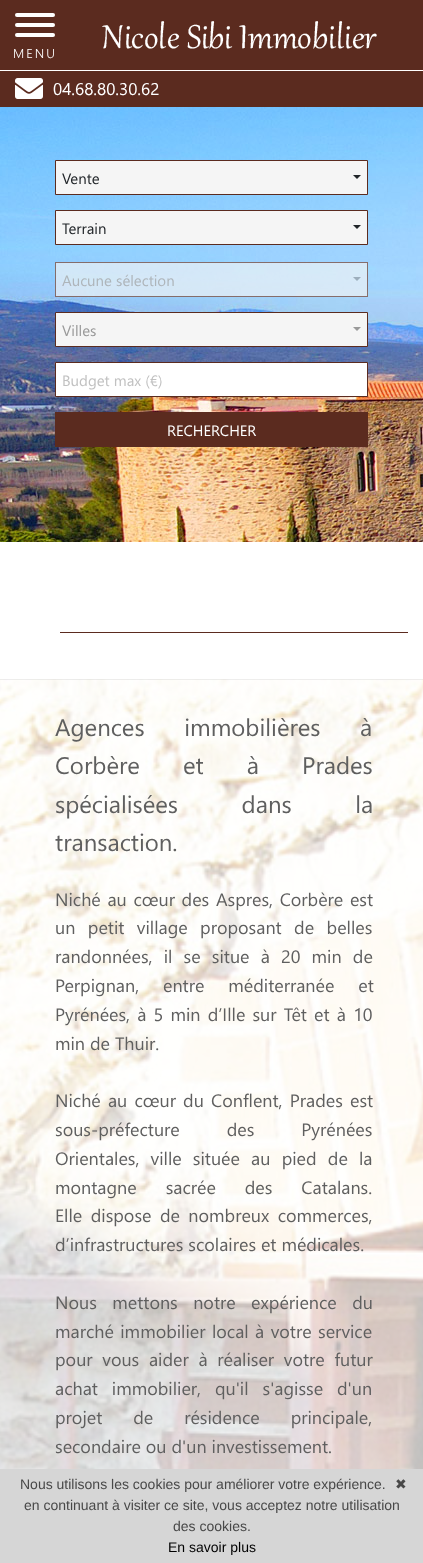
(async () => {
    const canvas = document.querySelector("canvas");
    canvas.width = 423;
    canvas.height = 1563;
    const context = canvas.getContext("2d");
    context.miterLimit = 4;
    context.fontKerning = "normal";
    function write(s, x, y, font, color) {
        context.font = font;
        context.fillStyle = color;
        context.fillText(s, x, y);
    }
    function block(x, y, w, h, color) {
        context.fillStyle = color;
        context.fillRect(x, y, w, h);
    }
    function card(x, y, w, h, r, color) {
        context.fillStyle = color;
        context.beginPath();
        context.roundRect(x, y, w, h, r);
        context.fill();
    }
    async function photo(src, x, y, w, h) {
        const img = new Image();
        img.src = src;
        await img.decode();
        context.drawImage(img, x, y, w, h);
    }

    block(0, 0, 423, 1563, "rgb(255, 255, 255)");
    block(0, 0, 423, 107, "rgb(91, 43, 31)");
    block(0, 70, 423, 1, "rgb(255, 255, 255)");
    await photo("media/1.png", 102, 21, 275, 28);
    card(15, 13, 40, 4, 2, "rgb(255, 255, 255)");
    card(15, 23, 40, 4, 2, "rgb(255, 255, 255)");
    card(15, 33, 40, 4, 2, "rgb(255, 255, 255)");
    context.letterSpacing = "2px";
    write("MENU", 13, 58, "300 13px Segoe UI", "rgb(255, 255, 255)");
    await photo("media/2.png", 15, 78, 28, 21);
    context.letterSpacing = "0px";
    write("04.68.80.30.62", 53, 95, "17px Segoe UI", "rgb(255, 255, 255)");
    await photo("media/3.png", 0, 107, 423, 435);
    context.fillStyle = "rgb(245, 245, 245)";
    context.beginPath();
    context.rect(55.5, 160.5, 312, 34);
    context.fill();
    context.strokeStyle = "rgb(91, 43, 31)";
    context.stroke();
    write("Vente", 62, 184, "15px Segoe UI", "rgb(33, 37, 41)");
    context.beginPath();
    context.moveTo(353, 175);
    context.lineTo(361, 175);
    context.lineTo(357, 179);
    context.closePath();
    context.fill();
    context.fillStyle = "rgb(245, 245, 245)";
    context.beginPath();
    context.rect(55.5, 210.5, 312, 34);
    context.fill();
    context.stroke();
    write("Terrain", 62, 234, "15px Segoe UI", "rgb(33, 37, 41)");
    context.beginPath();
    context.moveTo(353, 225);
    context.lineTo(361, 225);
    context.lineTo(357, 229);
    context.closePath();
    context.fill();
    block(55, 262, 313, 35, "rgba(245, 245, 245, 0.65)");
    context.strokeStyle = "rgba(91, 43, 31, 0.65)";
    context.strokeRect(55.5, 262.5, 312, 34);
    write("Aucune sélection", 62, 286, "15px Segoe UI", "rgb(174, 181, 186)");
    context.fillStyle = "rgb(156, 174, 188)";
    context.beginPath();
    context.moveTo(353, 277);
    context.lineTo(361, 277);
    context.lineTo(357, 281);
    context.closePath();
    context.fill();
    context.fillStyle = "rgb(245, 245, 245)";
    context.beginPath();
    context.rect(55.5, 312.5, 312, 34);
    context.fill();
    context.strokeStyle = "rgb(91, 43, 31)";
    context.stroke();
    write("Villes", 62, 336, "15px Segoe UI", "rgb(153, 153, 153)");
    context.beginPath();
    context.moveTo(353, 327);
    context.lineTo(361, 327);
    context.lineTo(357, 331);
    context.closePath();
    context.fill();
    context.fillStyle = "rgb(255, 255, 255)";
    context.beginPath();
    context.rect(55.5, 362.5, 312, 34);
    context.fill();
    context.stroke();
    write("Budget max (€)", 62, 386, "15px Segoe UI", "rgb(193, 193, 193)");
    block(55, 412, 313, 35, "rgb(91, 43, 31)");
    write("RECHERCHER", 167, 436, "15px Segoe UI", "rgb(255, 255, 255)");
    block(60, 632, 348, 1, "rgb(91, 43, 31)");
    await photo("media/4.png", 0, 679, 423, 790);
    context.wordSpacing = "33px";
    write("Agences immobilières à", 55, 736, "24px Segoe UI", "rgb(95, 95, 95)");
    context.wordSpacing = "36.5px";
    write("Corbère et à Prades", 55, 774, "24px Segoe UI", "rgb(95, 95, 95)");
    context.wordSpacing = "57px";
    write("spécialisées dans la", 55, 813, "24px Segoe UI", "rgb(95, 95, 95)");
    context.wordSpacing = "0px";
    write("transaction.", 55, 851, "24px Segoe UI", "rgb(95, 95, 95)");
    context.wordSpacing = "1.75px";
    write("Niché au cœur des Aspres, Corbère est", 55, 906, "18px Segoe UI", "rgb(95, 95, 95)");
    context.wordSpacing = "7.5px";
    write("un petit village proposant de belles", 55, 934, "18px Segoe UI", "rgb(95, 95, 95)");
    context.wordSpacing = "6.25px";
    write("randonnées, il se situe à 20 min de", 55, 963, "18px Segoe UI", "rgb(95, 95, 95)");
    context.wordSpacing = "19px";
    write("Perpignan, entre méditerranée et", 55, 992, "18px Segoe UI", "rgb(95, 95, 95)");
    context.wordSpacing = "2.25px";
    write("Pyrénées, à 5 min d’Ille sur Têt et à 10", 55, 1021, "18px Segoe UI", "rgb(95, 95, 95)");
    context.wordSpacing = "0px";
    write("min de Thuir.", 55, 1050, "18px Segoe UI", "rgb(95, 95, 95)");
    context.wordSpacing = "2.25px";
    write("Niché au cœur du Conflent, Prades est", 55, 1107, "18px Segoe UI", "rgb(95, 95, 95)");
    context.wordSpacing = "42px";
    write("sous-préfecture des Pyrénées", 55, 1136, "18px Segoe UI", "rgb(95, 95, 95)");
    context.wordSpacing = "6.25px";
    write("Orientales, ville située au pied de la", 55, 1165, "18px Segoe UI", "rgb(95, 95, 95)");
    context.wordSpacing = "24px";
    write("montagne sacrée des Catalans.", 55, 1194, "18px Segoe UI", "rgb(95, 95, 95)");
    context.wordSpacing = "3.5px";
    write("Elle dispose de nombreux commerces,", 55, 1222, "18px Segoe UI", "rgb(95, 95, 95)");
    context.wordSpacing = "0px";
    write("d’infrastructures scolaires et médicales.", 55, 1251, "18px Segoe UI", "rgb(95, 95, 95)");
    context.wordSpacing = "10.5px";
    write("Nous mettons notre expérience du", 55, 1309, "18px Segoe UI", "rgb(95, 95, 95)");
    context.wordSpacing = "1.5px";
    write("marché immobilier local à votre service", 55, 1338, "18px Segoe UI", "rgb(95, 95, 95)");
    context.wordSpacing = "4.75px";
    write("pour vous aider à réaliser votre futur", 55, 1366, "18px Segoe UI", "rgb(95, 95, 95)");
    context.wordSpacing = "9px";
    write("achat immobilier, qu'il s'agisse d'un", 55, 1395, "18px Segoe UI", "rgb(95, 95, 95)");
    context.wordSpacing = "26px";
    write("projet de résidence principale,", 55, 1424, "18px Segoe UI", "rgb(95, 95, 95)");
    context.wordSpacing = "0px";
    write("secondaire ou d'un investissement.", 55, 1453, "18px Segoe UI", "rgb(95, 95, 95)");
    block(0, 1469, 423, 94, "rgb(214, 214, 214)");
    write("Nous utilisons les cookies pour améliorer votre expérience.", 20, 1489, "14px Liberation Sans", "rgb(72, 72, 72)");
    write("en continuant à visiter ce site, vous acceptez notre utilisation", 24, 1510, "14px Liberation Sans", "rgb(72, 72, 72)");
    write("des cookies.", 173, 1531, "14px Liberation Sans", "rgb(72, 72, 72)");
    write("En savoir plus", 168, 1552, "14px Liberation Sans", "rgb(0, 0, 0)");
    write("✖", 395, 1489, "14px DejaVu Sans", "rgb(72, 72, 72)");
})();
